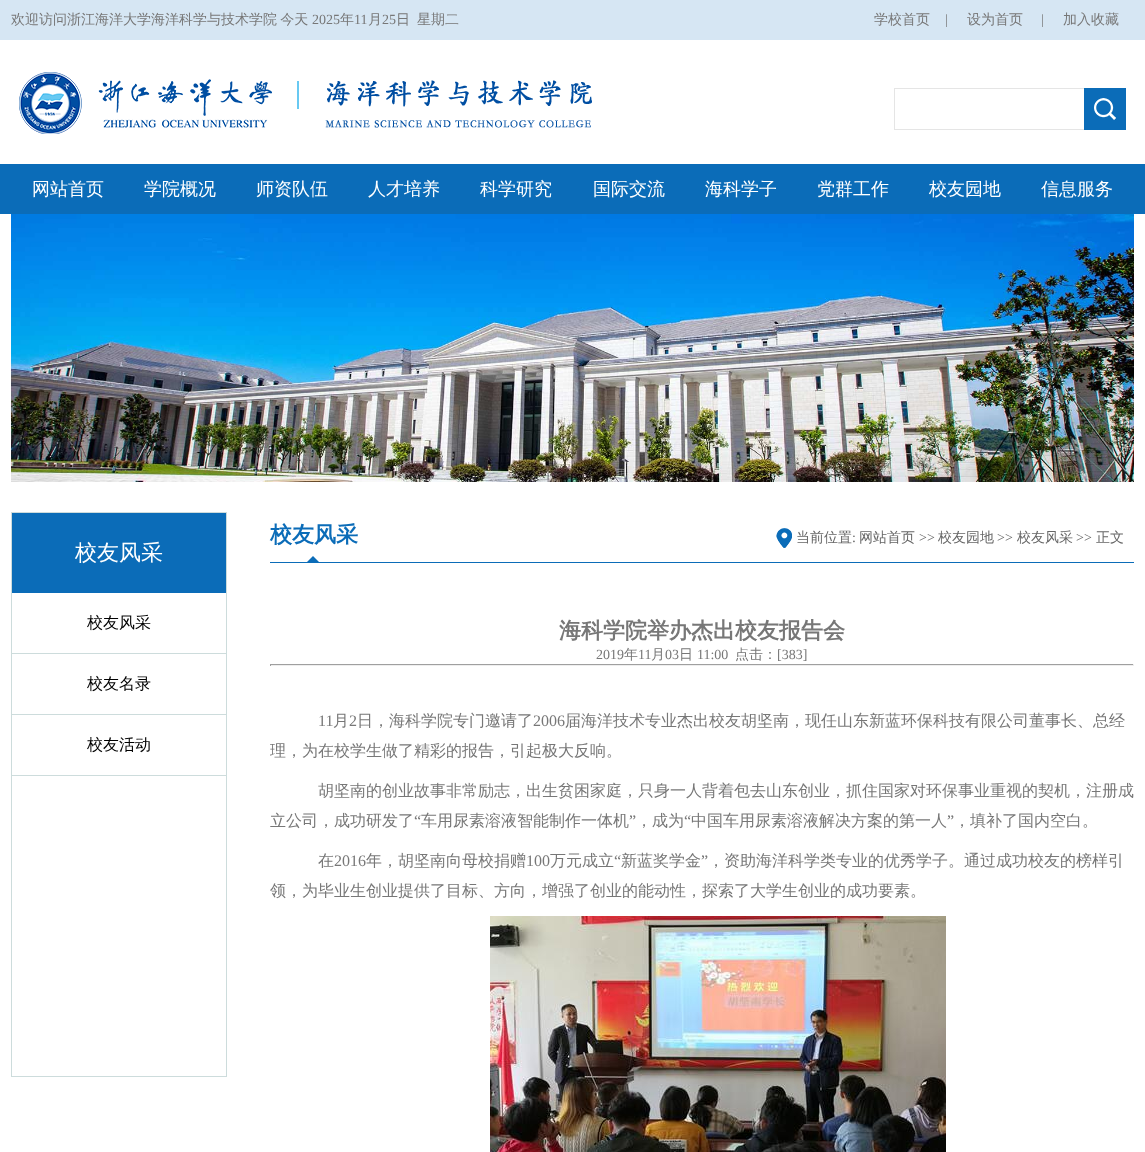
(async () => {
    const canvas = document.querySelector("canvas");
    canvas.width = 1145;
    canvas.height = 1152;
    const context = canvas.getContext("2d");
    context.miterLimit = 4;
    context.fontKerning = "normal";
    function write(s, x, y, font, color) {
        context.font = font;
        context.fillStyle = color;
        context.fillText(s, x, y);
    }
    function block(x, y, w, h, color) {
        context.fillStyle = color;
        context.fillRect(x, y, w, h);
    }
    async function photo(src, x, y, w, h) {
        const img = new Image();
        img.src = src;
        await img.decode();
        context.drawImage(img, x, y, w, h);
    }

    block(0, 0, 1145, 1152, "rgb(255, 255, 255)");
    block(0, 0, 1145, 40, "rgb(214, 230, 243)");
    context.wordSpacing = "-1px";
    write("欢迎访问浙江海洋大学海洋科学与技术学院 今天", 11, 24, "500 14px WenQuanYi Zen Hei", "rgb(119, 119, 119)");
    context.wordSpacing = "0px";
    write("2025", 312, 24, "14px Liberation Serif", "rgb(119, 119, 119)");
    write("年", 340, 24, "500 14px WenQuanYi Zen Hei", "rgb(119, 119, 119)");
    write("11", 354, 24, "14px Liberation Serif", "rgb(119, 119, 119)");
    write("月", 368, 24, "500 14px WenQuanYi Zen Hei", "rgb(119, 119, 119)");
    write("25", 382, 24, "14px Liberation Serif", "rgb(119, 119, 119)");
    write("日", 396, 24, "500 14px WenQuanYi Zen Hei", "rgb(119, 119, 119)");
    write("星期二", 417, 24, "500 14px WenQuanYi Zen Hei", "rgb(119, 119, 119)");
    write("学校首页", 874, 24, "500 14px WenQuanYi Zen Hei", "rgb(119, 119, 119)");
    write("|", 945, 24, "14px Liberation Serif", "rgb(119, 119, 119)");
    write("设为首页", 967, 24, "500 14px WenQuanYi Zen Hei", "rgb(119, 119, 119)");
    write("|", 1041, 24, "14px Liberation Serif", "rgb(119, 119, 119)");
    write("加入收藏", 1063, 24, "500 14px WenQuanYi Zen Hei", "rgb(119, 119, 119)");
    await photo("media/1.png", 19, 72, 573, 62);
    await photo("media/2.png", 894, 88, 232, 42);
    block(0, 164, 1145, 50, "rgb(11, 108, 184)");
    write("网站首页", 32, 195, "500 18px WenQuanYi Zen Hei", "rgb(255, 255, 255)");
    write("学院概况", 144, 195, "500 18px WenQuanYi Zen Hei", "rgb(255, 255, 255)");
    write("师资队伍", 256, 195, "500 18px WenQuanYi Zen Hei", "rgb(255, 255, 255)");
    write("人才培养", 368, 195, "500 18px WenQuanYi Zen Hei", "rgb(255, 255, 255)");
    write("科学研究", 480, 195, "500 18px WenQuanYi Zen Hei", "rgb(255, 255, 255)");
    write("国际交流", 593, 195, "500 18px WenQuanYi Zen Hei", "rgb(255, 255, 255)");
    write("海科学子", 705, 195, "500 18px WenQuanYi Zen Hei", "rgb(255, 255, 255)");
    write("党群工作", 817, 195, "500 18px WenQuanYi Zen Hei", "rgb(255, 255, 255)");
    write("校友园地", 929, 195, "500 18px WenQuanYi Zen Hei", "rgb(255, 255, 255)");
    write("信息服务", 1041, 195, "500 18px WenQuanYi Zen Hei", "rgb(255, 255, 255)");
    await photo("media/3.png", 11, 214, 1123, 268);
    context.strokeStyle = "rgb(205, 220, 220)";
    context.strokeRect(11.5, 512.5, 215, 564);
    block(12, 513, 214, 80, "rgb(11, 108, 184)");
    write("校友风采", 75, 560, "500 22px WenQuanYi Zen Hei", "rgb(255, 255, 255)");
    block(12, 653, 214, 1, "rgb(205, 220, 220)");
    write("校友风采", 87, 628, "500 16px WenQuanYi Zen Hei", "rgb(0, 0, 0)");
    block(12, 714, 214, 1, "rgb(205, 220, 220)");
    write("校友名录", 87, 689, "500 16px WenQuanYi Zen Hei", "rgb(0, 0, 0)");
    block(12, 775, 214, 1, "rgb(205, 220, 220)");
    write("校友活动", 87, 750, "500 16px WenQuanYi Zen Hei", "rgb(0, 0, 0)");
    await photo("media/4.png", 270, 556, 864, 7);
    write("校友风采", 270, 542, "bold 22px WenQuanYi Zen Hei", "rgb(11, 108, 184)");
    await photo("media/5.png", 776, 528, 16, 20);
    write("当前位置", 796, 542, "500 14px WenQuanYi Zen Hei", "rgb(102, 102, 102)");
    write(":", 852, 542, "14px Liberation Serif", "rgb(102, 102, 102)");
    write("网站首页", 859, 542, "500 14px WenQuanYi Zen Hei", "rgb(102, 102, 102)");
    write(">>", 919, 542, "14px Liberation Serif", "rgb(102, 102, 102)");
    write("校友园地", 938, 542, "500 14px WenQuanYi Zen Hei", "rgb(102, 102, 102)");
    write(">>", 997, 542, "14px Liberation Serif", "rgb(102, 102, 102)");
    write("校友风采", 1017, 542, "500 14px WenQuanYi Zen Hei", "rgb(102, 102, 102)");
    write(">>", 1076, 542, "14px Liberation Serif", "rgb(102, 102, 102)");
    write("正文", 1096, 542, "500 14px WenQuanYi Zen Hei", "rgb(102, 102, 102)");
    write("海科学院举办杰出校友报告会", 559, 638, "bold 22px WenQuanYi Zen Hei", "rgb(119, 119, 119)");
    write("2019", 596, 659, "14px Liberation Serif", "rgb(119, 119, 119)");
    write("年", 624, 659, "500 14px WenQuanYi Zen Hei", "rgb(119, 119, 119)");
    write("11", 638, 659, "14px Liberation Serif", "rgb(119, 119, 119)");
    write("月", 651, 659, "500 14px WenQuanYi Zen Hei", "rgb(119, 119, 119)");
    write("03", 665, 659, "14px Liberation Serif", "rgb(119, 119, 119)");
    write("日", 679, 659, "500 14px WenQuanYi Zen Hei", "rgb(119, 119, 119)");
    write("11:00", 697, 659, "14px Liberation Serif", "rgb(119, 119, 119)");
    write("点击：", 735, 659, "500 14px WenQuanYi Zen Hei", "rgb(119, 119, 119)");
    write("[383]", 777, 659, "14px Liberation Serif", "rgb(119, 119, 119)");
    block(270, 664, 864, 1, "rgb(159, 159, 159)");
    block(1133, 664, 1, 2, "rgb(238, 238, 238)");
    block(270, 665, 864, 1, "rgb(238, 238, 238)");
    block(270, 664, 1, 2, "rgb(159, 159, 159)");
    write("11", 318, 726, "16px Liberation Serif", "rgb(119, 119, 119)");
    write("月", 333, 726, "500 16px WenQuanYi Zen Hei", "rgb(119, 119, 119)");
    write("2", 349, 726, "16px Liberation Serif", "rgb(119, 119, 119)");
    write("日，海科学院专门邀请了", 357, 726, "500 16px WenQuanYi Zen Hei", "rgb(119, 119, 119)");
    write("2006", 533, 726, "16px Liberation Serif", "rgb(119, 119, 119)");
    write("届海洋技术专业杰出校友胡坚南，现任山东新蓝环保科技有限公司董事长、总经", 565, 726, "500 16px WenQuanYi Zen Hei", "rgb(119, 119, 119)");
    context.save();
    context.beginPath();
    context.rect(270, 696, 864, 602);
    context.clip();
    write("理，为在校学生做了精彩的报告，引起极大反响。", 270, 756, "500 16px WenQuanYi Zen Hei", "rgb(119, 119, 119)");
    context.restore();
    write("胡坚南的创业故事非常励志，出生贫困家庭，只身一人背着包去山东创业，抓住国家对环保事业重视的契机，注册成", 318, 796, "500 16px WenQuanYi Zen Hei", "rgb(119, 119, 119)");
    write("立公司，成功研发了", 270, 826, "500 16px WenQuanYi Zen Hei", "rgb(119, 119, 119)");
    write("“", 414, 826, "16px Liberation Serif", "rgb(119, 119, 119)");
    write("车用尿素溶液智能制作一体机", 421, 826, "500 16px WenQuanYi Zen Hei", "rgb(119, 119, 119)");
    write("”", 629, 826, "16px Liberation Serif", "rgb(119, 119, 119)");
    write("，成为", 636, 826, "500 16px WenQuanYi Zen Hei", "rgb(119, 119, 119)");
    write("“", 684, 826, "16px Liberation Serif", "rgb(119, 119, 119)");
    write("中国车用尿素溶液解决方案的第一人", 691, 826, "500 16px WenQuanYi Zen Hei", "rgb(119, 119, 119)");
    write("”", 947, 826, "16px Liberation Serif", "rgb(119, 119, 119)");
    write("，填补了国内空白。", 954, 826, "500 16px WenQuanYi Zen Hei", "rgb(119, 119, 119)");
    write("在", 318, 866, "500 16px WenQuanYi Zen Hei", "rgb(119, 119, 119)");
    write("2016", 334, 866, "16px Liberation Serif", "rgb(119, 119, 119)");
    write("年，胡坚南向母校捐赠", 366, 866, "500 16px WenQuanYi Zen Hei", "rgb(119, 119, 119)");
    write("100", 526, 866, "16px Liberation Serif", "rgb(119, 119, 119)");
    write("万元成立", 550, 866, "500 16px WenQuanYi Zen Hei", "rgb(119, 119, 119)");
    write("“", 614, 866, "16px Liberation Serif", "rgb(119, 119, 119)");
    write("新蓝奖学金", 621, 866, "500 16px WenQuanYi Zen Hei", "rgb(119, 119, 119)");
    write("”", 701, 866, "16px Liberation Serif", "rgb(119, 119, 119)");
    write("，资助海洋科学类专业的优秀学子。通过成功校友的榜样引", 708, 866, "500 16px WenQuanYi Zen Hei", "rgb(119, 119, 119)");
    write("领，为毕业生创业提供了目标、方向，增强了创业的能动性，探索了大学生创业的成功要素。", 270, 896, "500 16px WenQuanYi Zen Hei", "rgb(119, 119, 119)");
    await photo("media/6.png", 490, 916, 456, 236);
})();
